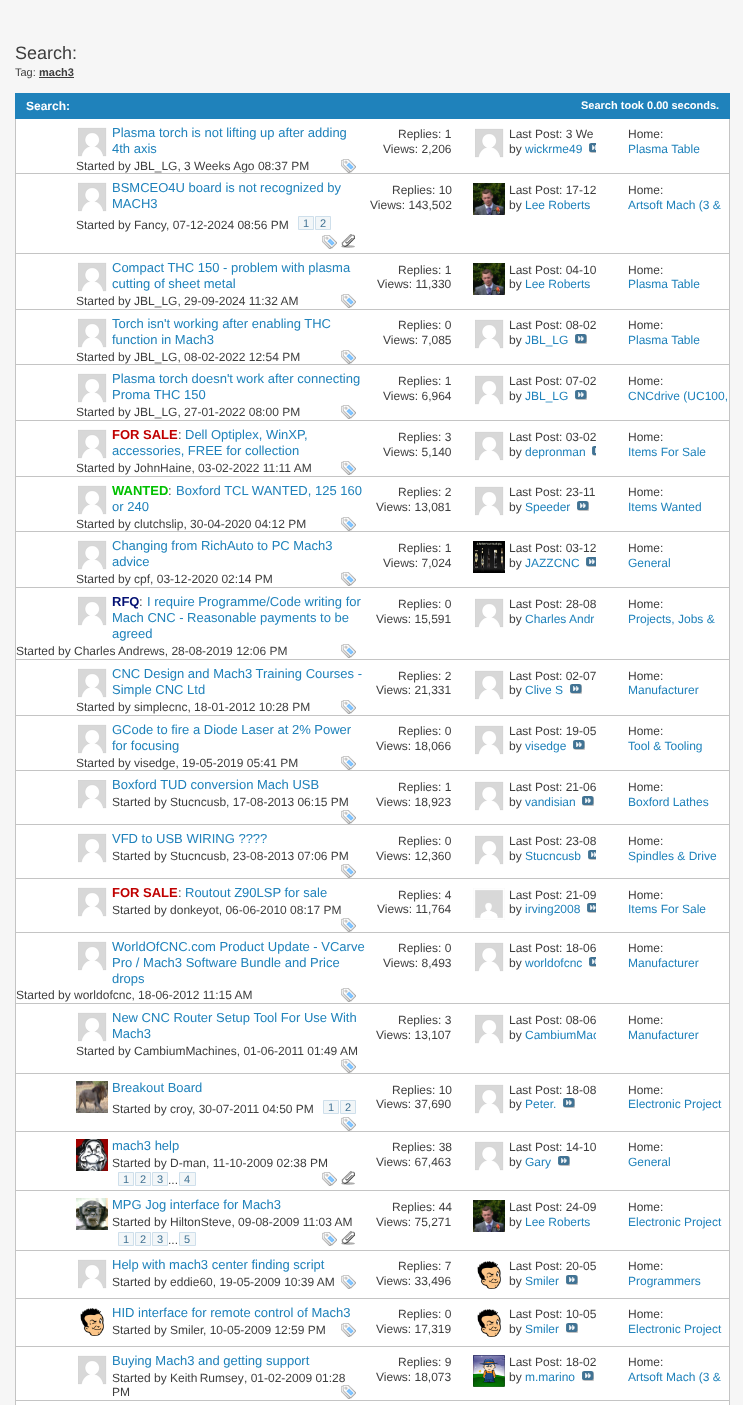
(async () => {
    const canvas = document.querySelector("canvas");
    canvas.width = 743;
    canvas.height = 1405;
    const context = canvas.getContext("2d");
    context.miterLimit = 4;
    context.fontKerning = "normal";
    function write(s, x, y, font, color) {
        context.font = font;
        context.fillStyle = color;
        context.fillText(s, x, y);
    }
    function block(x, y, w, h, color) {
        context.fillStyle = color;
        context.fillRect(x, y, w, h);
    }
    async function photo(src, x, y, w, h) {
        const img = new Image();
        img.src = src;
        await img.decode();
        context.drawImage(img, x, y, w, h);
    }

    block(0, 0, 743, 1405, "rgb(246, 246, 246)");
    write("Search:", 15, 59, "18px Liberation Sans", "rgb(62, 62, 62)");
    write("Tag:", 15, 76, "11px Liberation Sans", "rgb(62, 62, 62)");
    write("mach3", 39, 76, "bold 11px Liberation Sans", "rgb(62, 62, 62)");
    block(39, 77, 35, 1, "rgb(62, 62, 62)");
    block(15, 93, 715, 26, "rgb(31, 130, 187)");
    write("Search:", 26, 110, "bold 12px Liberation Sans", "rgb(255, 255, 255)");
    write("Search took 0.00 seconds.", 581, 109, "bold 11px Liberation Sans", "rgb(255, 255, 255)");
    block(16, 119, 713, 54, "rgb(255, 255, 255)");
    block(729, 119, 1, 706, "rgb(196, 196, 196)");
    block(15, 173, 715, 1, "rgb(196, 196, 196)");
    block(15, 119, 1, 55, "rgb(196, 196, 196)");
    await photo("media/1.png", 78, 127, 29, 30);
    write("Plasma torch is not lifting up after adding", 112, 137, "13px Liberation Sans", "rgb(31, 130, 187)");
    write("4th axis", 112, 153, "13px Liberation Sans", "rgb(31, 130, 187)");
    write("Started by JBL_LG, 3 Weeks Ago 08:37 PM", 76, 170, "12px Liberation Sans", "rgb(62, 62, 62)");
    await photo("media/2.png", 341, 159, 15, 14);
    write("Replies: 1", 398, 138, "12px Liberation Sans", "rgb(62, 62, 62)");
    write("Views: 2,206", 383, 153, "12px Liberation Sans", "rgb(62, 62, 62)");
    await photo("media/3.png", 475, 128, 29, 30);
    write("Last Post: 3 We", 509, 138, "12px Liberation Sans", "rgb(62, 62, 62)");
    write("by", 509, 153, "12px Liberation Sans", "rgb(62, 62, 62)");
    write("wickrme49", 525, 153, "12px Liberation Sans", "rgb(31, 130, 187)");
    await photo("media/4.png", 589, 143, 7, 10);
    write("Home:", 628, 138, "12px Liberation Sans", "rgb(62, 62, 62)");
    write("Plasma Table", 628, 153, "12px Liberation Sans", "rgb(31, 130, 187)");
    block(16, 174, 713, 79, "rgb(255, 255, 255)");
    block(15, 253, 715, 1, "rgb(196, 196, 196)");
    block(15, 174, 1, 80, "rgb(196, 196, 196)");
    await photo("media/5.png", 78, 182, 29, 30);
    write("BSMCEO4U board is not recognized by", 112, 192, "13px Liberation Sans", "rgb(31, 130, 187)");
    write("MACH3", 112, 208, "13px Liberation Sans", "rgb(31, 130, 187)");
    write("Started by Fancy", 76, 229, "12px Liberation Sans", "rgb(62, 62, 62)");
    write(", 07-12-2024 08:56 PM", 166, 229, "12px Liberation Sans", "rgb(62, 62, 62)");
    context.fillStyle = "rgb(242, 246, 248)";
    context.beginPath();
    context.rect(298.5, 216.5, 15, 13);
    context.fill();
    context.strokeStyle = "rgb(206, 223, 235)";
    context.stroke();
    write("1", 303, 227, "11px Liberation Sans", "rgb(65, 115, 148)");
    context.fillStyle = "rgb(242, 246, 248)";
    context.beginPath();
    context.rect(315.5, 216.5, 15, 13);
    context.fill();
    context.stroke();
    write("2", 320, 227, "11px Liberation Sans", "rgb(65, 115, 148)");
    await photo("media/2.png", 322, 235, 15, 14);
    await photo("media/6.png", 341, 234, 14, 14);
    write("Replies: 10", 392, 194, "12px Liberation Sans", "rgb(62, 62, 62)");
    write("Views: 143,502", 370, 209, "12px Liberation Sans", "rgb(62, 62, 62)");
    await photo("media/7.png", 473, 183, 32, 32);
    write("Last Post: 17-12", 509, 194, "12px Liberation Sans", "rgb(62, 62, 62)");
    write("by", 509, 209, "12px Liberation Sans", "rgb(62, 62, 62)");
    write("Lee Roberts", 525, 209, "12px Liberation Sans", "rgb(31, 130, 187)");
    write("Home:", 628, 194, "12px Liberation Sans", "rgb(62, 62, 62)");
    write("Artsoft Mach (3 &", 628, 209, "12px Liberation Sans", "rgb(31, 130, 187)");
    block(16, 254, 713, 55, "rgb(255, 255, 255)");
    block(15, 309, 715, 1, "rgb(196, 196, 196)");
    block(15, 254, 1, 56, "rgb(196, 196, 196)");
    await photo("media/8.png", 78, 262, 29, 30);
    write("Compact THC 150 - problem with plasma", 112, 272, "13px Liberation Sans", "rgb(31, 130, 187)");
    write("cutting of sheet metal", 112, 288, "13px Liberation Sans", "rgb(31, 130, 187)");
    write("Started by JBL_LG, 29-09-2024 11:32 AM", 76, 305, "12px Liberation Sans", "rgb(62, 62, 62)");
    await photo("media/2.png", 341, 294, 15, 14);
    write("Replies: 1", 398, 274, "12px Liberation Sans", "rgb(62, 62, 62)");
    write("Views: 11,330", 377, 288, "12px Liberation Sans", "rgb(62, 62, 62)");
    await photo("media/7.png", 473, 263, 32, 32);
    write("Last Post: 04-10", 509, 274, "12px Liberation Sans", "rgb(62, 62, 62)");
    write("by", 509, 288, "12px Liberation Sans", "rgb(62, 62, 62)");
    write("Lee Roberts", 525, 288, "12px Liberation Sans", "rgb(31, 130, 187)");
    write("Home:", 628, 274, "12px Liberation Sans", "rgb(62, 62, 62)");
    write("Plasma Table", 628, 288, "12px Liberation Sans", "rgb(31, 130, 187)");
    block(16, 310, 713, 54, "rgb(255, 255, 255)");
    block(15, 364, 715, 1, "rgb(196, 196, 196)");
    block(15, 310, 1, 55, "rgb(196, 196, 196)");
    await photo("media/9.png", 78, 318, 29, 30);
    write("Torch isn't working after enabling THC", 112, 328, "13px Liberation Sans", "rgb(31, 130, 187)");
    write("function in Mach3", 112, 344, "13px Liberation Sans", "rgb(31, 130, 187)");
    write("Started by JBL_LG, 08-02-2022 12:54 PM", 76, 361, "12px Liberation Sans", "rgb(62, 62, 62)");
    await photo("media/2.png", 341, 350, 15, 14);
    write("Replies: 0", 398, 329, "12px Liberation Sans", "rgb(62, 62, 62)");
    write("Views: 7,085", 383, 344, "12px Liberation Sans", "rgb(62, 62, 62)");
    await photo("media/9.png", 475, 319, 29, 30);
    write("Last Post: 08-02", 509, 329, "12px Liberation Sans", "rgb(62, 62, 62)");
    write("by", 509, 344, "12px Liberation Sans", "rgb(62, 62, 62)");
    write("JBL_LG", 525, 344, "12px Liberation Sans", "rgb(31, 130, 187)");
    await photo("media/10.png", 575, 334, 12, 10);
    write("Home:", 628, 329, "12px Liberation Sans", "rgb(62, 62, 62)");
    write("Plasma Table", 628, 344, "12px Liberation Sans", "rgb(31, 130, 187)");
    block(16, 365, 713, 55, "rgb(255, 255, 255)");
    block(15, 420, 715, 1, "rgb(196, 196, 196)");
    block(15, 365, 1, 56, "rgb(196, 196, 196)");
    await photo("media/11.png", 78, 373, 29, 30);
    write("Plasma torch doesn't work after connecting", 112, 383, "13px Liberation Sans", "rgb(31, 130, 187)");
    write("Proma THC 150", 112, 399, "13px Liberation Sans", "rgb(31, 130, 187)");
    write("Started by JBL_LG, 27-01-2022 08:00 PM", 76, 416, "12px Liberation Sans", "rgb(62, 62, 62)");
    await photo("media/2.png", 341, 405, 15, 14);
    write("Replies: 1", 398, 385, "12px Liberation Sans", "rgb(62, 62, 62)");
    write("Views: 6,964", 383, 400, "12px Liberation Sans", "rgb(62, 62, 62)");
    await photo("media/12.png", 475, 375, 29, 30);
    write("Last Post: 07-02", 509, 385, "12px Liberation Sans", "rgb(62, 62, 62)");
    write("by", 509, 400, "12px Liberation Sans", "rgb(62, 62, 62)");
    write("JBL_LG", 525, 400, "12px Liberation Sans", "rgb(31, 130, 187)");
    await photo("media/10.png", 575, 390, 12, 10);
    write("Home:", 628, 385, "12px Liberation Sans", "rgb(62, 62, 62)");
    write("CNCdrive (UC100,", 628, 400, "12px Liberation Sans", "rgb(31, 130, 187)");
    block(16, 421, 713, 55, "rgb(255, 255, 255)");
    block(15, 476, 715, 1, "rgb(196, 196, 196)");
    block(15, 421, 1, 56, "rgb(196, 196, 196)");
    await photo("media/5.png", 78, 429, 29, 30);
    write("FOR SALE", 112, 439, "bold 13px Liberation Sans", "rgb(192, 0, 0)");
    write(":", 178, 439, "13px Liberation Sans", "rgb(62, 62, 62)");
    write("Dell Optiplex, WinXP,", 185, 439, "13px Liberation Sans", "rgb(31, 130, 187)");
    write("accessories, FREE for collection", 112, 455, "13px Liberation Sans", "rgb(31, 130, 187)");
    write("Started by JohnHaine, 03-02-2022 11:11 AM", 76, 472, "12px Liberation Sans", "rgb(62, 62, 62)");
    await photo("media/2.png", 341, 461, 15, 14);
    write("Replies: 3", 398, 441, "12px Liberation Sans", "rgb(62, 62, 62)");
    write("Views: 5,140", 383, 456, "12px Liberation Sans", "rgb(62, 62, 62)");
    await photo("media/5.png", 475, 431, 29, 30);
    write("Last Post: 03-02", 509, 441, "12px Liberation Sans", "rgb(62, 62, 62)");
    write("by", 509, 456, "12px Liberation Sans", "rgb(62, 62, 62)");
    write("depronman", 525, 456, "12px Liberation Sans", "rgb(31, 130, 187)");
    await photo("media/13.png", 592, 446, 4, 10);
    write("Home:", 628, 441, "12px Liberation Sans", "rgb(62, 62, 62)");
    write("Items For Sale", 628, 456, "12px Liberation Sans", "rgb(31, 130, 187)");
    block(16, 477, 713, 54, "rgb(255, 255, 255)");
    block(15, 531, 715, 1, "rgb(196, 196, 196)");
    block(15, 477, 1, 55, "rgb(196, 196, 196)");
    await photo("media/5.png", 78, 485, 29, 30);
    write("WANTED", 112, 495, "bold 13px Liberation Sans", "rgb(0, 192, 0)");
    write(":", 168, 495, "13px Liberation Sans", "rgb(62, 62, 62)");
    write("Boxford TCL WANTED, 125 160", 176, 495, "13px Liberation Sans", "rgb(31, 130, 187)");
    write("or 240", 112, 511, "13px Liberation Sans", "rgb(31, 130, 187)");
    write("Started by clutchslip, 30-04-2020 04:12 PM", 76, 528, "12px Liberation Sans", "rgb(62, 62, 62)");
    await photo("media/2.png", 341, 517, 15, 14);
    write("Replies: 2", 398, 496, "12px Liberation Sans", "rgb(62, 62, 62)");
    write("Views: 13,081", 376, 511, "12px Liberation Sans", "rgb(62, 62, 62)");
    await photo("media/5.png", 475, 486, 29, 30);
    write("Last Post: 23-11", 509, 496, "12px Liberation Sans", "rgb(62, 62, 62)");
    write("by", 509, 511, "12px Liberation Sans", "rgb(62, 62, 62)");
    write("Speeder", 525, 511, "12px Liberation Sans", "rgb(31, 130, 187)");
    await photo("media/10.png", 577, 501, 12, 10);
    write("Home:", 628, 496, "12px Liberation Sans", "rgb(62, 62, 62)");
    write("Items Wanted", 628, 511, "12px Liberation Sans", "rgb(31, 130, 187)");
    block(16, 532, 713, 55, "rgb(255, 255, 255)");
    block(15, 587, 715, 1, "rgb(196, 196, 196)");
    block(15, 532, 1, 56, "rgb(196, 196, 196)");
    await photo("media/14.png", 78, 540, 29, 30);
    write("Changing from RichAuto to PC Mach3", 112, 550, "13px Liberation Sans", "rgb(31, 130, 187)");
    write("advice", 112, 566, "13px Liberation Sans", "rgb(31, 130, 187)");
    write("Started by cpf, 03-12-2020 02:14 PM", 76, 583, "12px Liberation Sans", "rgb(62, 62, 62)");
    await photo("media/2.png", 341, 572, 15, 14);
    write("Replies: 1", 398, 552, "12px Liberation Sans", "rgb(62, 62, 62)");
    write("Views: 7,024", 383, 567, "12px Liberation Sans", "rgb(62, 62, 62)");
    await photo("media/15.png", 473, 541, 32, 32);
    write("Last Post: 03-12", 509, 552, "12px Liberation Sans", "rgb(62, 62, 62)");
    write("by", 509, 567, "12px Liberation Sans", "rgb(62, 62, 62)");
    write("JAZZCNC", 525, 567, "12px Liberation Sans", "rgb(31, 130, 187)");
    await photo("media/16.png", 586, 557, 10, 10);
    write("Home:", 628, 552, "12px Liberation Sans", "rgb(62, 62, 62)");
    write("General", 628, 567, "12px Liberation Sans", "rgb(31, 130, 187)");
    block(16, 588, 713, 71, "rgb(255, 255, 255)");
    block(15, 659, 715, 1, "rgb(196, 196, 196)");
    block(15, 588, 1, 72, "rgb(196, 196, 196)");
    await photo("media/5.png", 78, 596, 29, 30);
    write("RFQ", 112, 606, "bold 13px Liberation Sans", "rgb(3, 16, 115)");
    write(":", 139, 606, "13px Liberation Sans", "rgb(62, 62, 62)");
    write("I require Programme/Code writing for", 147, 606, "13px Liberation Sans", "rgb(31, 130, 187)");
    write("Mach CNC - Reasonable payments to be", 112, 622, "13px Liberation Sans", "rgb(31, 130, 187)");
    write("agreed", 112, 638, "13px Liberation Sans", "rgb(31, 130, 187)");
    write("Started by Charles Andrews, 28-08-2019 12:06 PM", 16, 655, "12px Liberation Sans", "rgb(62, 62, 62)");
    await photo("media/2.png", 341, 644, 15, 14);
    write("Replies: 0", 398, 608, "12px Liberation Sans", "rgb(62, 62, 62)");
    write("Views: 15,591", 376, 623, "12px Liberation Sans", "rgb(62, 62, 62)");
    await photo("media/5.png", 475, 598, 29, 30);
    write("Last Post: 28-08", 509, 608, "12px Liberation Sans", "rgb(62, 62, 62)");
    write("by", 509, 623, "12px Liberation Sans", "rgb(62, 62, 62)");
    write("Charles Andr", 525, 623, "12px Liberation Sans", "rgb(31, 130, 187)");
    write("Home:", 628, 608, "12px Liberation Sans", "rgb(62, 62, 62)");
    write("Projects, Jobs &", 628, 623, "12px Liberation Sans", "rgb(31, 130, 187)");
    block(16, 660, 713, 55, "rgb(255, 255, 255)");
    block(15, 715, 715, 1, "rgb(196, 196, 196)");
    block(15, 660, 1, 56, "rgb(196, 196, 196)");
    await photo("media/5.png", 78, 668, 29, 30);
    write("CNC Design and Mach3 Training Courses -", 112, 678, "13px Liberation Sans", "rgb(31, 130, 187)");
    write("Simple CNC Ltd", 112, 694, "13px Liberation Sans", "rgb(31, 130, 187)");
    write("Started by simplecnc, 18-01-2012 10:28 PM", 76, 711, "12px Liberation Sans", "rgb(62, 62, 62)");
    await photo("media/2.png", 341, 700, 15, 14);
    write("Replies: 2", 398, 680, "12px Liberation Sans", "rgb(62, 62, 62)");
    write("Views: 21,331", 376, 694, "12px Liberation Sans", "rgb(62, 62, 62)");
    await photo("media/5.png", 475, 670, 29, 30);
    write("Last Post: 02-07", 509, 680, "12px Liberation Sans", "rgb(62, 62, 62)");
    write("by", 509, 694, "12px Liberation Sans", "rgb(62, 62, 62)");
    write("Clive S", 525, 694, "12px Liberation Sans", "rgb(31, 130, 187)");
    await photo("media/10.png", 570, 684, 12, 10);
    write("Home:", 628, 680, "12px Liberation Sans", "rgb(62, 62, 62)");
    write("Manufacturer", 628, 694, "12px Liberation Sans", "rgb(31, 130, 187)");
    block(16, 716, 713, 54, "rgb(255, 255, 255)");
    block(15, 770, 715, 1, "rgb(196, 196, 196)");
    block(15, 716, 1, 55, "rgb(196, 196, 196)");
    await photo("media/5.png", 78, 724, 29, 30);
    write("GCode to fire a Diode Laser at 2% Power", 112, 734, "13px Liberation Sans", "rgb(31, 130, 187)");
    write("for focusing", 112, 750, "13px Liberation Sans", "rgb(31, 130, 187)");
    write("Started by visedge, 19-05-2019 05:41 PM", 76, 767, "12px Liberation Sans", "rgb(62, 62, 62)");
    await photo("media/2.png", 341, 756, 15, 14);
    write("Replies: 0", 398, 735, "12px Liberation Sans", "rgb(62, 62, 62)");
    write("Views: 18,066", 376, 750, "12px Liberation Sans", "rgb(62, 62, 62)");
    await photo("media/5.png", 475, 725, 29, 30);
    write("Last Post: 19-05", 509, 735, "12px Liberation Sans", "rgb(62, 62, 62)");
    write("by", 509, 750, "12px Liberation Sans", "rgb(62, 62, 62)");
    write("visedge", 525, 750, "12px Liberation Sans", "rgb(31, 130, 187)");
    await photo("media/10.png", 573, 740, 12, 10);
    write("Home:", 628, 735, "12px Liberation Sans", "rgb(62, 62, 62)");
    write("Tool & Tooling", 628, 750, "12px Liberation Sans", "rgb(31, 130, 187)");
    block(16, 771, 713, 53, "rgb(255, 255, 255)");
    block(15, 824, 715, 1, "rgb(196, 196, 196)");
    block(15, 771, 1, 54, "rgb(196, 196, 196)");
    await photo("media/17.png", 78, 780, 29, 29);
    write("Boxford TUD conversion Mach USB", 112, 789, "13px Liberation Sans", "rgb(31, 130, 187)");
    write("Started by Stucncusb, 17-08-2013 06:15 PM", 112, 806, "12px Liberation Sans", "rgb(62, 62, 62)");
    await photo("media/2.png", 341, 810, 15, 14);
    write("Replies: 1", 398, 791, "12px Liberation Sans", "rgb(62, 62, 62)");
    write("Views: 18,923", 376, 806, "12px Liberation Sans", "rgb(62, 62, 62)");
    await photo("media/18.png", 475, 781, 29, 30);
    write("Last Post: 21-06", 509, 791, "12px Liberation Sans", "rgb(62, 62, 62)");
    write("by", 509, 806, "12px Liberation Sans", "rgb(62, 62, 62)");
    write("vandisian", 525, 806, "12px Liberation Sans", "rgb(31, 130, 187)");
    await photo("media/10.png", 582, 796, 12, 10);
    write("Home:", 628, 791, "12px Liberation Sans", "rgb(62, 62, 62)");
    write("Boxford Lathes", 628, 806, "12px Liberation Sans", "rgb(31, 130, 187)");
    block(16, 825, 713, 53, "rgb(255, 255, 255)");
    block(729, 825, 1, 576, "rgb(196, 196, 196)");
    block(15, 878, 715, 1, "rgb(196, 196, 196)");
    block(15, 825, 1, 54, "rgb(196, 196, 196)");
    await photo("media/8.png", 78, 833, 29, 30);
    write("VFD to USB WIRING ????", 112, 843, "13px Liberation Sans", "rgb(31, 130, 187)");
    write("Started by Stucncusb, 23-08-2013 07:06 PM", 112, 860, "12px Liberation Sans", "rgb(62, 62, 62)");
    await photo("media/2.png", 341, 864, 15, 14);
    write("Replies: 0", 398, 845, "12px Liberation Sans", "rgb(62, 62, 62)");
    write("Views: 12,360", 376, 860, "12px Liberation Sans", "rgb(62, 62, 62)");
    await photo("media/8.png", 475, 835, 29, 30);
    write("Last Post: 23-08", 509, 845, "12px Liberation Sans", "rgb(62, 62, 62)");
    write("by", 509, 860, "12px Liberation Sans", "rgb(62, 62, 62)");
    write("Stucncusb", 525, 860, "12px Liberation Sans", "rgb(31, 130, 187)");
    await photo("media/19.png", 588, 850, 8, 10);
    write("Home:", 628, 845, "12px Liberation Sans", "rgb(62, 62, 62)");
    write("Spindles & Drive", 628, 860, "12px Liberation Sans", "rgb(31, 130, 187)");
    block(16, 879, 713, 53, "rgb(255, 255, 255)");
    block(15, 932, 715, 1, "rgb(196, 196, 196)");
    block(15, 879, 1, 54, "rgb(196, 196, 196)");
    await photo("media/20.png", 78, 887, 29, 30);
    write("FOR SALE", 112, 897, "bold 13px Liberation Sans", "rgb(192, 0, 0)");
    write(":", 178, 897, "13px Liberation Sans", "rgb(62, 62, 62)");
    write("Routout Z90LSP for sale", 185, 897, "13px Liberation Sans", "rgb(31, 130, 187)");
    write("Started by donkeyot, 06-06-2010 08:17 PM", 112, 914, "12px Liberation Sans", "rgb(62, 62, 62)");
    await photo("media/2.png", 341, 918, 15, 14);
    write("Replies: 4", 398, 899, "12px Liberation Sans", "rgb(62, 62, 62)");
    write("Views: 11,764", 377, 913, "12px Liberation Sans", "rgb(62, 62, 62)");
    await photo("media/21.png", 473, 888, 32, 32);
    write("Last Post: 21-09", 509, 899, "12px Liberation Sans", "rgb(62, 62, 62)");
    write("by", 509, 913, "12px Liberation Sans", "rgb(62, 62, 62)");
    write("irving2008", 525, 913, "12px Liberation Sans", "rgb(31, 130, 187)");
    await photo("media/22.png", 587, 903, 9, 10);
    write("Home:", 628, 899, "12px Liberation Sans", "rgb(62, 62, 62)");
    write("Items For Sale", 628, 913, "12px Liberation Sans", "rgb(31, 130, 187)");
    block(16, 933, 713, 70, "rgb(255, 255, 255)");
    block(15, 1003, 715, 1, "rgb(196, 196, 196)");
    block(15, 933, 1, 71, "rgb(196, 196, 196)");
    await photo("media/5.png", 78, 941, 29, 30);
    write("WorldOfCNC.com Product Update - VCarve", 112, 951, "13px Liberation Sans", "rgb(31, 130, 187)");
    write("Pro / Mach3 Software Bundle and Price", 112, 967, "13px Liberation Sans", "rgb(31, 130, 187)");
    write("drops", 112, 983, "13px Liberation Sans", "rgb(31, 130, 187)");
    write("Started by worldofcnc, 18-06-2012 11:15 AM", 16, 999, "12px Liberation Sans", "rgb(62, 62, 62)");
    await photo("media/2.png", 341, 988, 15, 14);
    write("Replies: 0", 398, 952, "12px Liberation Sans", "rgb(62, 62, 62)");
    write("Views: 8,493", 383, 967, "12px Liberation Sans", "rgb(62, 62, 62)");
    await photo("media/5.png", 475, 942, 29, 30);
    write("Last Post: 18-06", 509, 952, "12px Liberation Sans", "rgb(62, 62, 62)");
    write("by", 509, 967, "12px Liberation Sans", "rgb(62, 62, 62)");
    write("worldofcnc", 525, 967, "12px Liberation Sans", "rgb(31, 130, 187)");
    await photo("media/4.png", 589, 957, 7, 10);
    write("Home:", 628, 952, "12px Liberation Sans", "rgb(62, 62, 62)");
    write("Manufacturer", 628, 967, "12px Liberation Sans", "rgb(31, 130, 187)");
    block(16, 1004, 713, 69, "rgb(255, 255, 255)");
    block(15, 1073, 715, 1, "rgb(196, 196, 196)");
    block(15, 1004, 1, 70, "rgb(196, 196, 196)");
    await photo("media/9.png", 78, 1012, 29, 30);
    write("New CNC Router Setup Tool For Use With", 112, 1022, "13px Liberation Sans", "rgb(31, 130, 187)");
    write("Mach3", 112, 1038, "13px Liberation Sans", "rgb(31, 130, 187)");
    write("Started by CambiumMachines, 01-06-2011 01:49 AM", 76, 1055, "12px Liberation Sans", "rgb(62, 62, 62)");
    await photo("media/2.png", 341, 1059, 15, 14);
    write("Replies: 3", 398, 1024, "12px Liberation Sans", "rgb(62, 62, 62)");
    write("Views: 13,107", 376, 1039, "12px Liberation Sans", "rgb(62, 62, 62)");
    await photo("media/9.png", 475, 1014, 29, 30);
    write("Last Post: 08-06", 509, 1024, "12px Liberation Sans", "rgb(62, 62, 62)");
    write("by", 509, 1039, "12px Liberation Sans", "rgb(62, 62, 62)");
    context.save();
    context.beginPath();
    context.rect(509, 1028, 87, 14);
    context.clip();
    write("CambiumMac", 525, 1039, "12px Liberation Sans", "rgb(31, 130, 187)");
    context.restore();
    write("Home:", 628, 1024, "12px Liberation Sans", "rgb(62, 62, 62)");
    write("Manufacturer", 628, 1039, "12px Liberation Sans", "rgb(31, 130, 187)");
    block(16, 1074, 713, 57, "rgb(255, 255, 255)");
    block(15, 1131, 715, 1, "rgb(196, 196, 196)");
    block(15, 1074, 1, 58, "rgb(196, 196, 196)");
    await photo("media/23.png", 76, 1081, 32, 32);
    write("Breakout Board", 112, 1092, "13px Liberation Sans", "rgb(31, 130, 187)");
    write("Started by croy", 112, 1113, "12px Liberation Sans", "rgb(62, 62, 62)");
    write(", 30-07-2011 04:50 PM", 192, 1113, "12px Liberation Sans", "rgb(62, 62, 62)");
    context.fillStyle = "rgb(242, 246, 248)";
    context.beginPath();
    context.rect(323.5, 1100.5, 15, 13);
    context.fill();
    context.stroke();
    write("1", 328, 1111, "11px Liberation Sans", "rgb(65, 115, 148)");
    context.fillStyle = "rgb(242, 246, 248)";
    context.beginPath();
    context.rect(340.5, 1100.5, 15, 13);
    context.fill();
    context.stroke();
    write("2", 345, 1111, "11px Liberation Sans", "rgb(65, 115, 148)");
    await photo("media/2.png", 341, 1117, 15, 14);
    write("Replies: 10", 392, 1094, "12px Liberation Sans", "rgb(62, 62, 62)");
    write("Views: 37,690", 376, 1108, "12px Liberation Sans", "rgb(62, 62, 62)");
    await photo("media/24.png", 475, 1084, 29, 30);
    write("Last Post: 18-08", 509, 1094, "12px Liberation Sans", "rgb(62, 62, 62)");
    write("by", 509, 1108, "12px Liberation Sans", "rgb(62, 62, 62)");
    write("Peter.", 525, 1108, "12px Liberation Sans", "rgb(31, 130, 187)");
    await photo("media/10.png", 563, 1098, 12, 10);
    write("Home:", 628, 1094, "12px Liberation Sans", "rgb(62, 62, 62)");
    write("Electronic Project", 628, 1108, "12px Liberation Sans", "rgb(31, 130, 187)");
    block(16, 1132, 713, 58, "rgb(255, 255, 255)");
    block(15, 1190, 715, 1, "rgb(196, 196, 196)");
    block(15, 1132, 1, 59, "rgb(196, 196, 196)");
    await photo("media/25.png", 76, 1139, 32, 32);
    write("mach3 help", 112, 1150, "13px Liberation Sans", "rgb(31, 130, 187)");
    write("Started by D-man, 11-10-2009 02:38 PM", 112, 1167, "12px Liberation Sans", "rgb(62, 62, 62)");
    context.fillStyle = "rgb(242, 246, 248)";
    context.beginPath();
    context.rect(118.5, 1172.5, 15, 13);
    context.fill();
    context.stroke();
    write("1", 123, 1183, "11px Liberation Sans", "rgb(65, 115, 148)");
    context.fillStyle = "rgb(242, 246, 248)";
    context.beginPath();
    context.rect(135.5, 1172.5, 15, 13);
    context.fill();
    context.stroke();
    write("2", 140, 1183, "11px Liberation Sans", "rgb(65, 115, 148)");
    context.fillStyle = "rgb(242, 246, 248)";
    context.beginPath();
    context.rect(152.5, 1172.5, 15, 13);
    context.fill();
    context.stroke();
    write("3", 157, 1183, "11px Liberation Sans", "rgb(65, 115, 148)");
    write("...", 168, 1184, "12px Liberation Sans", "rgb(62, 62, 62)");
    context.fillStyle = "rgb(242, 246, 248)";
    context.beginPath();
    context.rect(179.5, 1172.5, 16, 13);
    context.fill();
    context.stroke();
    write("4", 184, 1183, "11px Liberation Sans", "rgb(65, 115, 148)");
    await photo("media/2.png", 322, 1172, 15, 14);
    await photo("media/6.png", 341, 1171, 14, 14);
    write("Replies: 38", 392, 1151, "12px Liberation Sans", "rgb(62, 62, 62)");
    write("Views: 67,463", 376, 1166, "12px Liberation Sans", "rgb(62, 62, 62)");
    await photo("media/20.png", 475, 1141, 29, 30);
    write("Last Post: 14-10", 509, 1151, "12px Liberation Sans", "rgb(62, 62, 62)");
    write("by", 509, 1166, "12px Liberation Sans", "rgb(62, 62, 62)");
    write("Gary", 525, 1166, "12px Liberation Sans", "rgb(31, 130, 187)");
    await photo("media/10.png", 558, 1156, 12, 10);
    write("Home:", 628, 1151, "12px Liberation Sans", "rgb(62, 62, 62)");
    write("General", 628, 1166, "12px Liberation Sans", "rgb(31, 130, 187)");
    block(16, 1191, 713, 59, "rgb(255, 255, 255)");
    block(15, 1250, 715, 1, "rgb(196, 196, 196)");
    block(15, 1191, 1, 60, "rgb(196, 196, 196)");
    await photo("media/26.png", 76, 1198, 32, 32);
    write("MPG Jog interface for Mach3", 112, 1209, "13px Liberation Sans", "rgb(31, 130, 187)");
    write("Started by HiltonSteve, 09-08-2009 11:03 AM", 112, 1226, "12px Liberation Sans", "rgb(62, 62, 62)");
    context.fillStyle = "rgb(242, 246, 248)";
    context.beginPath();
    context.rect(118.5, 1232.5, 15, 13);
    context.fill();
    context.stroke();
    write("1", 123, 1243, "11px Liberation Sans", "rgb(65, 115, 148)");
    context.fillStyle = "rgb(242, 246, 248)";
    context.beginPath();
    context.rect(135.5, 1232.5, 15, 13);
    context.fill();
    context.stroke();
    write("2", 140, 1243, "11px Liberation Sans", "rgb(65, 115, 148)");
    context.fillStyle = "rgb(242, 246, 248)";
    context.beginPath();
    context.rect(152.5, 1232.5, 15, 13);
    context.fill();
    context.stroke();
    write("3", 157, 1243, "11px Liberation Sans", "rgb(65, 115, 148)");
    write("...", 168, 1244, "12px Liberation Sans", "rgb(62, 62, 62)");
    context.fillStyle = "rgb(242, 246, 248)";
    context.beginPath();
    context.rect(179.5, 1232.5, 16, 13);
    context.fill();
    context.stroke();
    write("5", 184, 1243, "11px Liberation Sans", "rgb(65, 115, 148)");
    await photo("media/2.png", 322, 1232, 15, 14);
    await photo("media/6.png", 341, 1231, 14, 14);
    write("Replies: 44", 392, 1211, "12px Liberation Sans", "rgb(62, 62, 62)");
    write("Views: 75,271", 376, 1226, "12px Liberation Sans", "rgb(62, 62, 62)");
    await photo("media/7.png", 473, 1200, 32, 32);
    write("Last Post: 24-09", 509, 1211, "12px Liberation Sans", "rgb(62, 62, 62)");
    write("by", 509, 1226, "12px Liberation Sans", "rgb(62, 62, 62)");
    write("Lee Roberts", 525, 1226, "12px Liberation Sans", "rgb(31, 130, 187)");
    write("Home:", 628, 1211, "12px Liberation Sans", "rgb(62, 62, 62)");
    write("Electronic Project", 628, 1226, "12px Liberation Sans", "rgb(31, 130, 187)");
    block(16, 1251, 713, 47, "rgb(255, 255, 255)");
    block(15, 1298, 715, 1, "rgb(196, 196, 196)");
    block(15, 1251, 1, 48, "rgb(196, 196, 196)");
    await photo("media/20.png", 78, 1259, 29, 30);
    write("Help with mach3 center finding script", 112, 1269, "13px Liberation Sans", "rgb(31, 130, 187)");
    write("Started by eddie60, 19-05-2009 10:39 AM", 112, 1286, "12px Liberation Sans", "rgb(62, 62, 62)");
    await photo("media/2.png", 341, 1275, 15, 14);
    write("Replies: 7", 398, 1270, "12px Liberation Sans", "rgb(62, 62, 62)");
    write("Views: 33,496", 376, 1285, "12px Liberation Sans", "rgb(62, 62, 62)");
    await photo("media/27.png", 477, 1261, 24, 28);
    write("Last Post: 20-05", 509, 1270, "12px Liberation Sans", "rgb(62, 62, 62)");
    write("by", 509, 1285, "12px Liberation Sans", "rgb(62, 62, 62)");
    write("Smiler", 525, 1285, "12px Liberation Sans", "rgb(31, 130, 187)");
    await photo("media/10.png", 566, 1275, 12, 10);
    write("Home:", 628, 1270, "12px Liberation Sans", "rgb(62, 62, 62)");
    write("Programmers", 628, 1285, "12px Liberation Sans", "rgb(31, 130, 187)");
    block(16, 1299, 713, 47, "rgb(255, 255, 255)");
    block(15, 1346, 715, 1, "rgb(196, 196, 196)");
    block(15, 1299, 1, 48, "rgb(196, 196, 196)");
    await photo("media/27.png", 80, 1308, 24, 28);
    write("HID interface for remote control of Mach3", 112, 1317, "13px Liberation Sans", "rgb(31, 130, 187)");
    write("Started by Smiler", 112, 1334, "12px Liberation Sans", "rgb(62, 62, 62)");
    write(", 10-05-2009 12:59 PM", 203, 1334, "12px Liberation Sans", "rgb(62, 62, 62)");
    await photo("media/2.png", 341, 1323, 15, 14);
    write("Replies: 0", 398, 1318, "12px Liberation Sans", "rgb(62, 62, 62)");
    write("Views: 17,319", 376, 1333, "12px Liberation Sans", "rgb(62, 62, 62)");
    await photo("media/27.png", 477, 1309, 24, 28);
    write("Last Post: 10-05", 509, 1318, "12px Liberation Sans", "rgb(62, 62, 62)");
    write("by", 509, 1333, "12px Liberation Sans", "rgb(62, 62, 62)");
    write("Smiler", 525, 1333, "12px Liberation Sans", "rgb(31, 130, 187)");
    await photo("media/10.png", 566, 1323, 12, 10);
    write("Home:", 628, 1318, "12px Liberation Sans", "rgb(62, 62, 62)");
    write("Electronic Project", 628, 1333, "12px Liberation Sans", "rgb(31, 130, 187)");
    block(16, 1347, 713, 53, "rgb(255, 255, 255)");
    block(15, 1400, 715, 1, "rgb(196, 196, 196)");
    block(15, 1347, 1, 54, "rgb(196, 196, 196)");
    await photo("media/5.png", 78, 1355, 29, 30);
    write("Buying Mach3 and getting support", 112, 1365, "13px Liberation Sans", "rgb(31, 130, 187)");
    write("Started by", 112, 1382, "12px Liberation Sans", "rgb(62, 62, 62)");
    context.wordSpacing = "-1px";
    write("Keith Rumsey", 170, 1382, "12px Liberation Sans", "rgb(62, 62, 62)");
    context.wordSpacing = "0px";
    write(", 01-02-2009 01:28", 244, 1382, "12px Liberation Sans", "rgb(62, 62, 62)");
    write("PM", 112, 1396, "12px Liberation Sans", "rgb(62, 62, 62)");
    await photo("media/2.png", 341, 1385, 15, 14);
    write("Replies: 9", 398, 1366, "12px Liberation Sans", "rgb(62, 62, 62)");
    write("Views: 18,073", 376, 1381, "12px Liberation Sans", "rgb(62, 62, 62)");
    await photo("media/28.png", 473, 1355, 32, 32);
    write("Last Post: 18-02", 509, 1366, "12px Liberation Sans", "rgb(62, 62, 62)");
    write("by", 509, 1381, "12px Liberation Sans", "rgb(62, 62, 62)");
    write("m.marino", 525, 1381, "12px Liberation Sans", "rgb(31, 130, 187)");
    await photo("media/10.png", 582, 1371, 12, 10);
    write("Home:", 628, 1366, "12px Liberation Sans", "rgb(62, 62, 62)");
    write("Artsoft Mach (3 &", 628, 1381, "12px Liberation Sans", "rgb(31, 130, 187)");
    block(15, 1401, 715, 4, "rgb(255, 255, 255)");
    block(729, 1401, 1, 4, "rgb(196, 196, 196)");
    block(15, 1401, 1, 4, "rgb(196, 196, 196)");
})();
